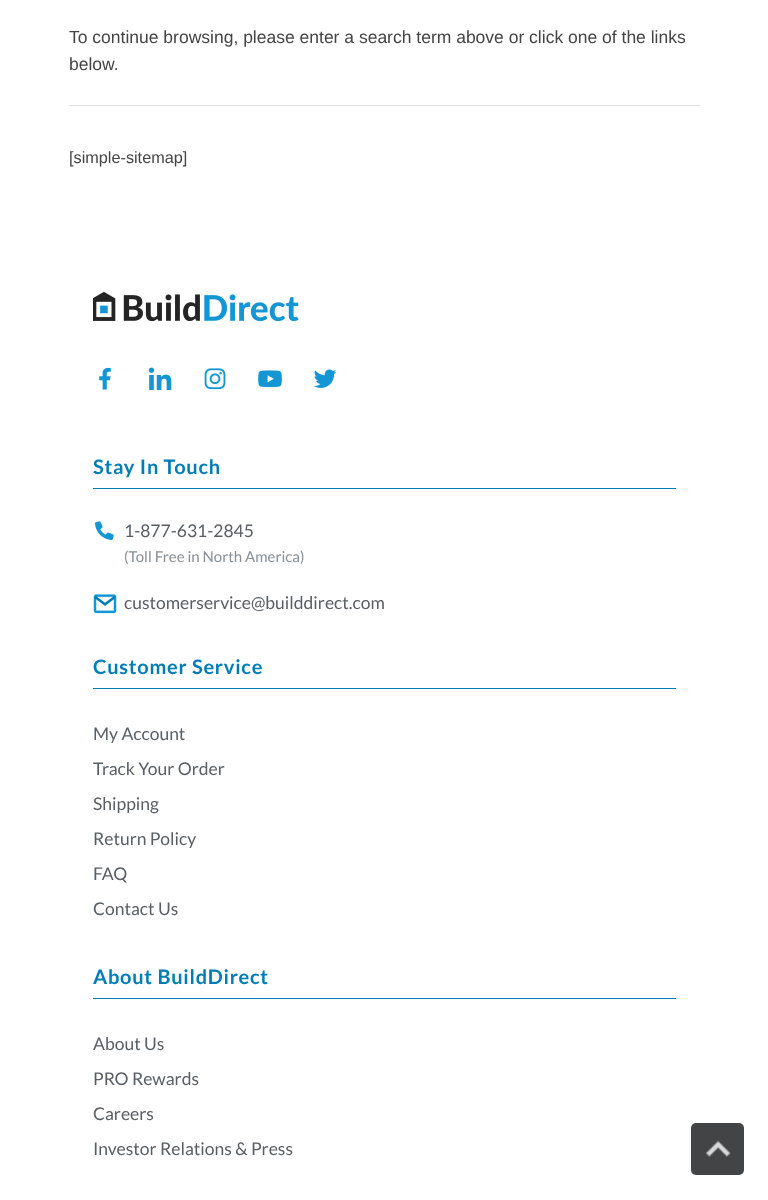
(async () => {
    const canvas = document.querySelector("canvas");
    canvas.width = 768;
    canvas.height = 1200;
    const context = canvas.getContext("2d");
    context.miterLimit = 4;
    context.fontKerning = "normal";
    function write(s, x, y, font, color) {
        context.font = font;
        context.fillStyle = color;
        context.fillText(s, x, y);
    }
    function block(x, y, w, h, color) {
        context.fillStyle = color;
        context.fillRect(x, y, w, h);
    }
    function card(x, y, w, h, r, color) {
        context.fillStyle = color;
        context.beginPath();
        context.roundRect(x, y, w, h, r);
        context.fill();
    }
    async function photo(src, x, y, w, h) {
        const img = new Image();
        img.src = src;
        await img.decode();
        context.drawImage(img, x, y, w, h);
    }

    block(0, 0, 768, 1200, "rgb(255, 255, 255)");
    block(69, 105, 631, 1, "rgb(221, 221, 221)");
    write("To continue browsing, please enter a search term above or click one of the links", 69, 43, "17.5px Liberation Sans", "rgb(68, 68, 68)");
    write("below.", 69, 70, "17.5px Liberation Sans", "rgb(68, 68, 68)");
    write("[simple-sitemap]", 69, 163, "16.25px Liberation Sans", "rgb(68, 68, 68)");
    await photo("media/1.png", 93, 291, 206, 31);
    await photo("media/2.png", 99, 367, 12, 23);
    await photo("media/3.png", 148, 367, 24, 23);
    await photo("media/4.png", 204, 368, 22, 22);
    await photo("media/5.png", 258, 370, 24, 18);
    await photo("media/6.png", 313, 369, 24, 19);
    block(93, 488, 583, 1, "rgb(0, 125, 182)");
    context.letterSpacing = "0.75px";
    write("Stay In Touch", 93, 474, "bold 20px Lato", "rgb(0, 125, 182)");
    await photo("media/7.png", 95, 521, 19, 19);
    context.letterSpacing = "0px";
    write("1-877-631-2845", 124, 537, "17.5px Lato", "rgb(88, 94, 99)");
    write("(Toll Free in North America)", 124, 562, "15px Lato", "rgb(134, 143, 150)");
    await photo("media/8.png", 93, 594, 24, 20);
    write("customerservice@builddirect.com", 124, 609, "17.5px Lato", "rgb(88, 94, 99)");
    block(93, 688, 583, 1, "rgb(0, 125, 182)");
    context.letterSpacing = "0.75px";
    write("Customer Service", 93, 674, "bold 20px Lato", "rgb(0, 125, 182)");
    context.letterSpacing = "0px";
    write("My Account", 93, 740, "17.5px Lato", "rgb(88, 94, 99)");
    write("Track Your Order", 93, 775, "17.5px Lato", "rgb(88, 94, 99)");
    write("Shipping", 93, 810, "17.5px Lato", "rgb(88, 94, 99)");
    write("Return Policy", 93, 845, "17.5px Lato", "rgb(88, 94, 99)");
    write("FAQ", 93, 880, "17.5px Lato", "rgb(88, 94, 99)");
    write("Contact Us", 93, 915, "17.5px Lato", "rgb(88, 94, 99)");
    block(93, 998, 583, 1, "rgb(0, 125, 182)");
    context.letterSpacing = "0.75px";
    write("About BuildDirect", 93, 984, "bold 20px Lato", "rgb(0, 125, 182)");
    context.letterSpacing = "0px";
    write("About Us", 93, 1050, "17.5px Lato", "rgb(88, 94, 99)");
    write("PRO Rewards", 93, 1085, "17.5px Lato", "rgb(88, 94, 99)");
    write("Careers", 93, 1120, "17.5px Lato", "rgb(88, 94, 99)");
    write("Investor Relations & Press", 93, 1155, "17.5px Lato", "rgb(88, 94, 99)");
    card(691, 1123, 53, 52, 5, "rgb(66, 68, 69)");
    await photo("media/9.png", 706, 1140, 25, 17);
})();
